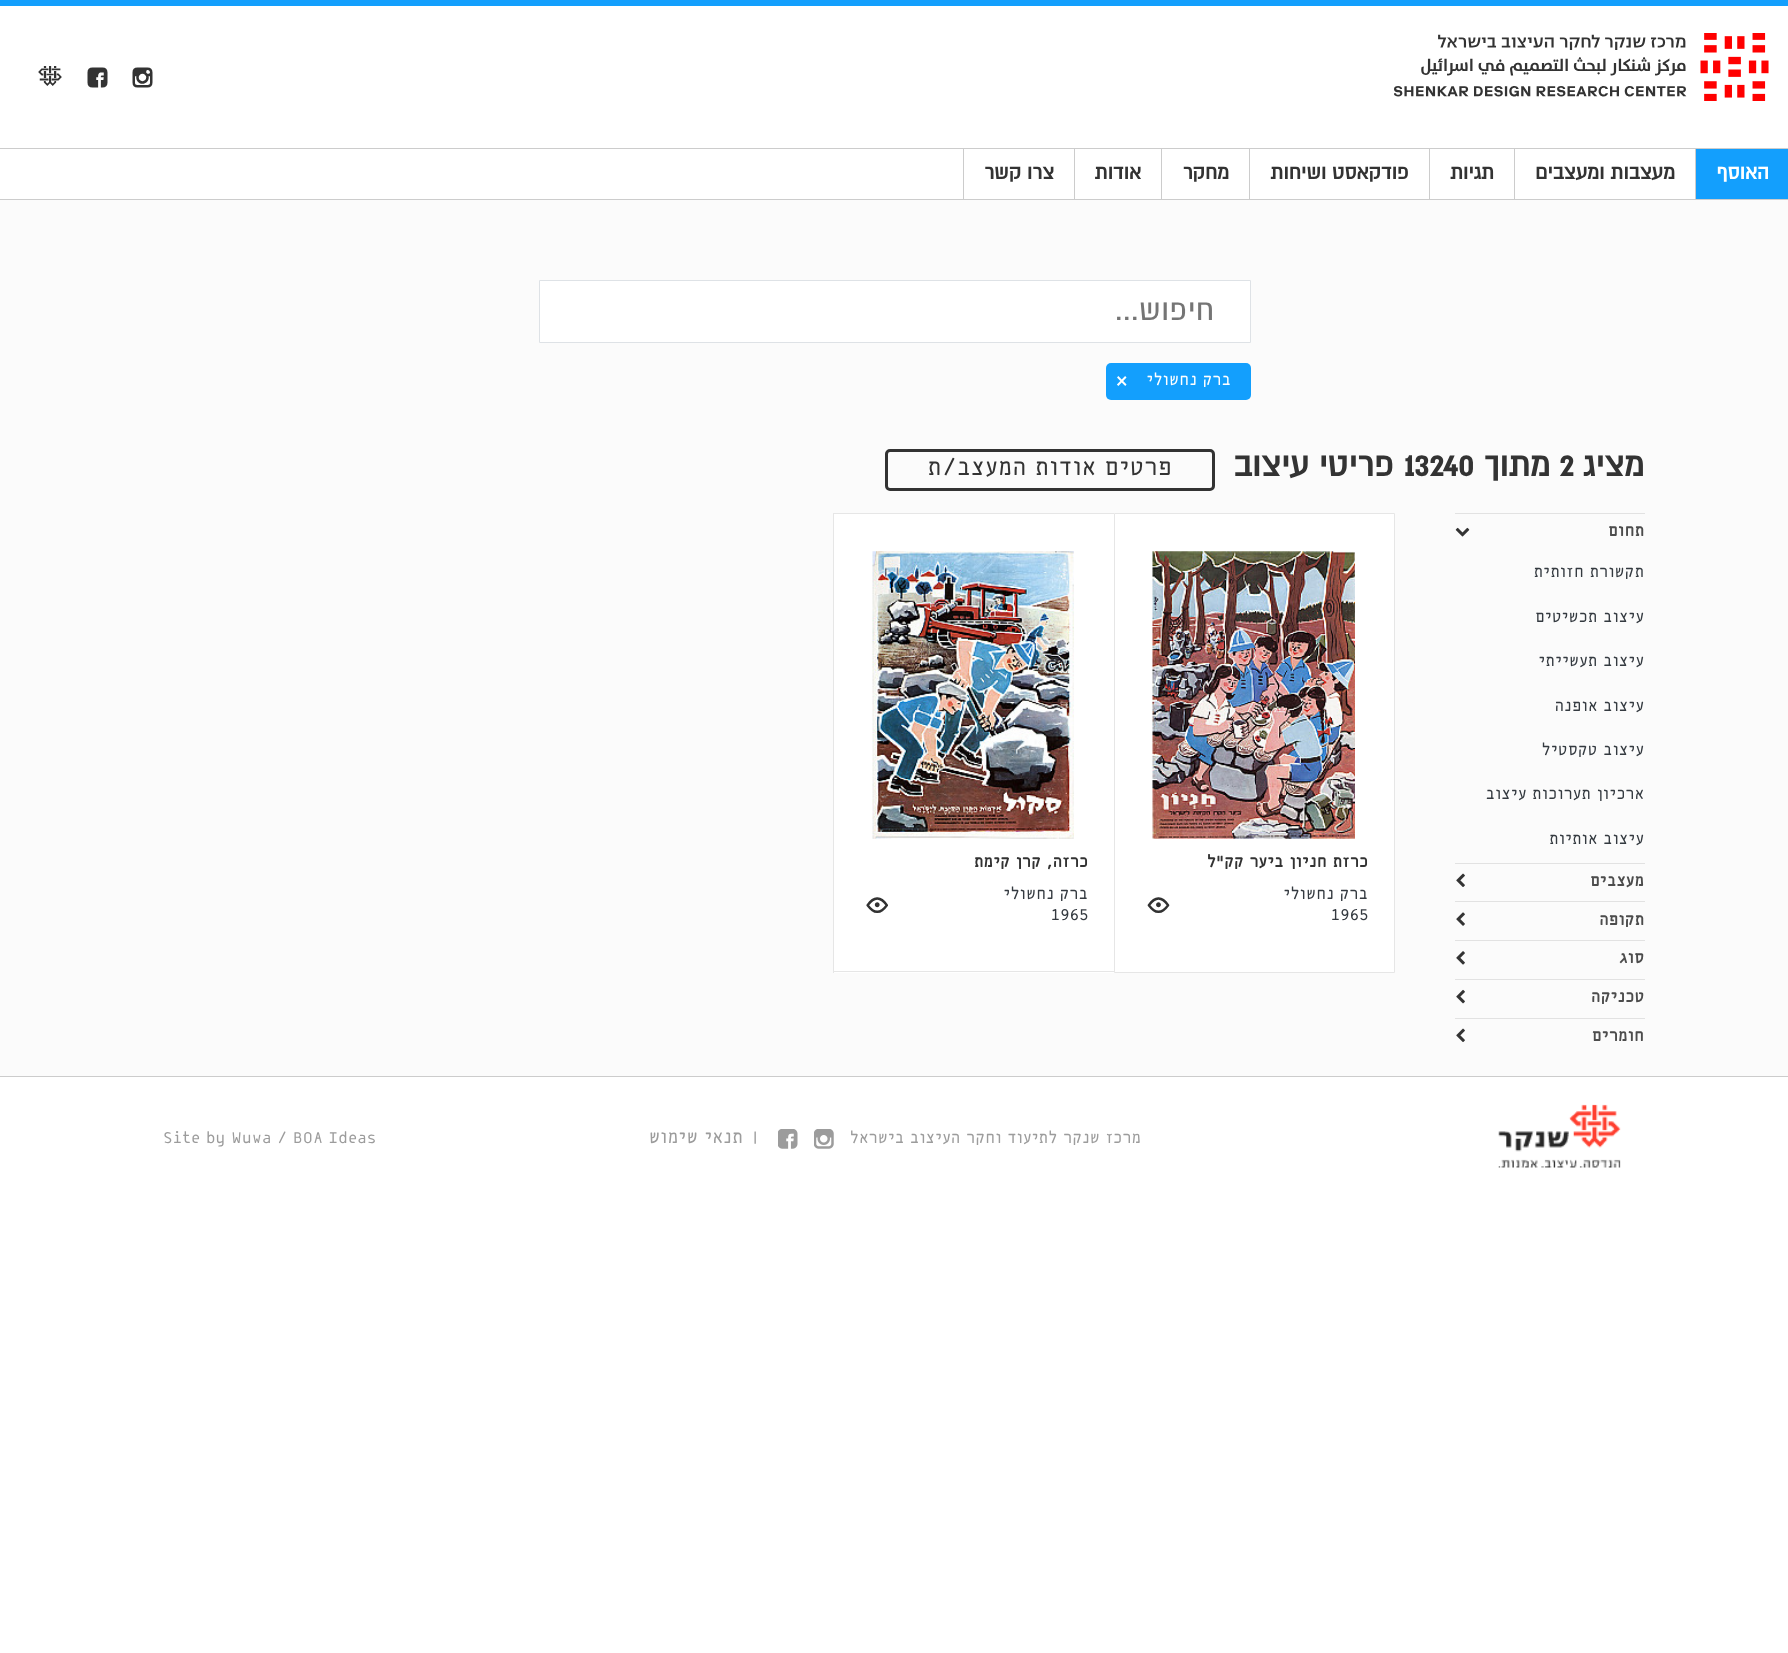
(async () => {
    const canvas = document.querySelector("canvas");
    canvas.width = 1788;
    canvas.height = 1653;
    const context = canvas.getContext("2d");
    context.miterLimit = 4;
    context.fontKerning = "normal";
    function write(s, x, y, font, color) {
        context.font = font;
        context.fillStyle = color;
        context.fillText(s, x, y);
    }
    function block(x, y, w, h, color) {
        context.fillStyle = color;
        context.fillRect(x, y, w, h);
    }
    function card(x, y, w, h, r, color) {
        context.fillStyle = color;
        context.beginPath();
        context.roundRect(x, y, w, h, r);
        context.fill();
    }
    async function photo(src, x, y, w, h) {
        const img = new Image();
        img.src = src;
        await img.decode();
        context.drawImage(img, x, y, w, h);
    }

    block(0, 0, 1788, 1653, "rgb(255, 255, 255)");
    block(0, 0, 1788, 6, "rgb(19, 159, 253)");
    await photo("media/1.png", 1394, 33, 375, 68);
    await photo("media/2.png", 132, 67, 21, 21);
    await photo("media/3.png", 87, 67, 21, 21);
    await photo("media/4.png", 38, 66, 24, 20);
    block(0, 148, 1788, 1, "rgb(204, 204, 204)");
    block(0, 199, 1788, 1, "rgb(204, 204, 204)");
    block(1696, 149, 92, 50, "rgb(19, 159, 253)");
    block(1695, 149, 1, 50, "rgb(204, 204, 204)");
    context.direction = "rtl";
    write("האוסף", 1769, 179, "bold 22.5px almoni", "rgb(255, 255, 255)");
    block(1514, 149, 1, 50, "rgb(204, 204, 204)");
    write("מעצבות ומעצבים", 1675, 179, "bold 22.5px almoni", "rgb(51, 51, 51)");
    block(1429, 149, 1, 50, "rgb(204, 204, 204)");
    write("תגיות", 1494, 179, "bold 22.5px almoni", "rgb(51, 51, 51)");
    block(1249, 149, 1, 50, "rgb(204, 204, 204)");
    write("פודקאסט ושיחות", 1409, 179, "bold 22.5px almoni", "rgb(51, 51, 51)");
    block(1161, 149, 1, 50, "rgb(204, 204, 204)");
    write("מחקר", 1229, 179, "bold 22.5px almoni", "rgb(51, 51, 51)");
    block(1074, 149, 1, 50, "rgb(204, 204, 204)");
    write("אודות", 1141, 179, "bold 22.5px almoni", "rgb(51, 51, 51)");
    block(963, 149, 1, 50, "rgb(204, 204, 204)");
    write("צרו קשר", 1054, 179, "bold 22.5px almoni", "rgb(51, 51, 51)");
    block(0, 200, 1788, 876, "rgb(251, 251, 251)");
    context.fillStyle = "rgb(255, 255, 255)";
    context.beginPath();
    context.rect(539.5, 280.5, 711, 62);
    context.fill();
    context.strokeStyle = "rgb(222, 226, 230)";
    context.stroke();
    write("חיפוש...", 1214, 320, "34px almoni", "rgb(117, 117, 117)");
    card(1106, 363, 145, 37, 5, "rgb(19, 159, 253)");
    write("ברק נחשולי", 1231, 385, "17.5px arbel", "rgb(255, 255, 255)");
    await photo("media/5.png", 1117, 376, 10, 10);
    write("מציג", 1644, 476, "bold 37.5px almoni", "rgb(51, 51, 51)");
    context.direction = "ltr";
    write("2", 1559, 476, "bold 37.5px almoni", "rgb(51, 51, 51)");
    context.direction = "rtl";
    write("מתוך", 1550, 476, "bold 37.5px almoni", "rgb(51, 51, 51)");
    context.direction = "ltr";
    write("13240", 1404, 476, "bold 37.5px almoni", "rgb(51, 51, 51)");
    context.direction = "rtl";
    write("פריטי עיצוב", 1394, 476, "bold 37.5px almoni", "rgb(51, 51, 51)");
    context.beginPath();
    context.roundRect(886.5, 450.5, 327, 39, 3.5);
    context.strokeStyle = "rgb(51, 51, 51)";
    context.lineWidth = 3;
    context.stroke();
    write("פרטים אודות המעצב/ת", 1172, 475, "26px arbel", "rgb(51, 51, 51)");
    block(1455, 513, 190, 1, "rgb(226, 226, 226)");
    write("תחום", 1644, 536, "bold 17.5px arbel", "rgb(76, 76, 76)");
    await photo("media/6.png", 1455, 527, 15, 10);
    write("תקשורת חזותית", 1644, 577, "17.5px arbel", "rgb(52, 58, 64)");
    write("עיצוב תכשיטים", 1644, 622, "17.5px arbel", "rgb(52, 58, 64)");
    write("עיצוב תעשייתי", 1644, 666, "17.5px arbel", "rgb(52, 58, 64)");
    write("עיצוב אופנה", 1644, 711, "17.5px arbel", "rgb(52, 58, 64)");
    write("עיצוב טקסטיל", 1644, 755, "17.5px arbel", "rgb(52, 58, 64)");
    write("ארכיון תערוכות עיצוב", 1644, 799, "17.5px arbel", "rgb(52, 58, 64)");
    write("עיצוב אותיות", 1644, 844, "17.5px arbel", "rgb(52, 58, 64)");
    block(1455, 863, 190, 1, "rgb(226, 226, 226)");
    write("מעצבים", 1644, 886, "bold 17.5px arbel", "rgb(76, 76, 76)");
    await photo("media/7.png", 1456, 873, 9, 14);
    block(1455, 901, 190, 1, "rgb(226, 226, 226)");
    write("תקופה", 1644, 925, "bold 17.5px arbel", "rgb(76, 76, 76)");
    await photo("media/8.png", 1456, 912, 9, 14);
    block(1455, 940, 190, 1, "rgb(226, 226, 226)");
    write("סוג", 1644, 963, "bold 17.5px arbel", "rgb(76, 76, 76)");
    await photo("media/9.png", 1456, 951, 9, 14);
    block(1455, 979, 190, 1, "rgb(226, 226, 226)");
    write("טכניקה", 1644, 1002, "bold 17.5px arbel", "rgb(76, 76, 76)");
    await photo("media/10.png", 1456, 989, 9, 15);
    block(1455, 1018, 190, 1, "rgb(226, 226, 226)");
    write("חומרים", 1644, 1041, "bold 17.5px arbel", "rgb(76, 76, 76)");
    await photo("media/7.png", 1456, 1028, 9, 14);
    context.fillStyle = "rgb(255, 255, 255)";
    context.beginPath();
    context.rect(1114.5, 513.5, 280, 459);
    context.fill();
    context.strokeStyle = "rgb(230, 230, 230)";
    context.lineWidth = 1;
    context.stroke();
    await photo("media/11.png", 1152, 551, 203, 288);
    write("כרזת חניון ביער קק\"ל", 1368, 867, "bold 17.5px arbel", "rgb(51, 51, 51)");
    write("ברק נחשולי", 1368, 899, "17.5px arbel", "rgb(52, 58, 64)");
    context.direction = "ltr";
    write("1965", 1331, 920, "17.5px arbel", "rgb(52, 58, 64)");
    await photo("media/12.png", 1147, 897, 23, 16);
    block(834, 514, 280, 459, "rgb(255, 255, 255)");
    block(833, 513, 281, 1, "rgb(230, 230, 230)");
    block(833, 971, 281, 1, "rgb(230, 230, 230)");
    block(833, 513, 1, 460, "rgb(230, 230, 230)");
    await photo("media/13.png", 872, 551, 202, 288);
    context.direction = "rtl";
    write("כרזה, קרן קימת", 1088, 867, "bold 17.5px arbel", "rgb(51, 51, 51)");
    write("ברק נחשולי", 1088, 899, "17.5px arbel", "rgb(52, 58, 64)");
    context.direction = "ltr";
    write("1965", 1051, 920, "17.5px arbel", "rgb(52, 58, 64)");
    await photo("media/14.png", 866, 897, 22, 16);
    block(0, 1076, 1788, 1, "rgb(204, 204, 204)");
    await photo("media/15.png", 1498, 1104, 123, 64);
    context.direction = "rtl";
    write("מרכז שנקר לתיעוד וחקר העיצוב בישראל", 1141, 1143, "17.5px arbel", "rgb(156, 156, 156)");
    await photo("media/16.png", 814, 1129, 20, 20);
    await photo("media/17.png", 778, 1129, 20, 20);
    context.direction = "ltr";
    write("|", 753, 1143, "17.5px arbel", "rgb(156, 156, 156)");
    context.direction = "rtl";
    write("תנאי שימוש", 743, 1143, "20px arbel", "rgb(156, 156, 156)");
    context.direction = "ltr";
    write("Site by Wuwa / BOA Ideas", 163, 1143, "17.5px arbel", "rgb(156, 156, 156)");
})();
